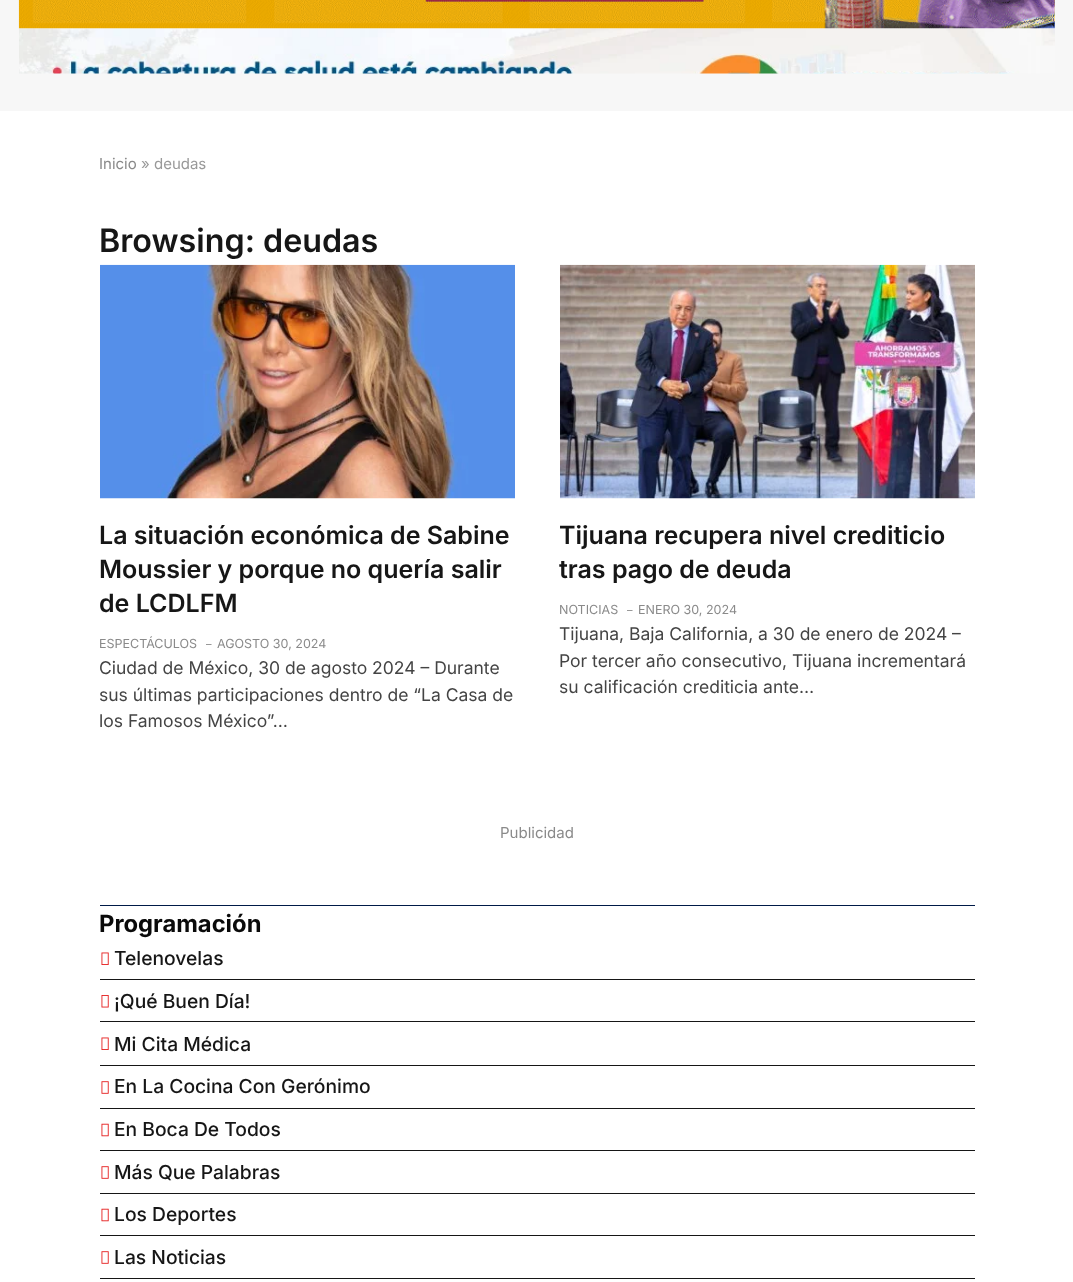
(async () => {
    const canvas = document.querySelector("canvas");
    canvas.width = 1073;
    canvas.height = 1282;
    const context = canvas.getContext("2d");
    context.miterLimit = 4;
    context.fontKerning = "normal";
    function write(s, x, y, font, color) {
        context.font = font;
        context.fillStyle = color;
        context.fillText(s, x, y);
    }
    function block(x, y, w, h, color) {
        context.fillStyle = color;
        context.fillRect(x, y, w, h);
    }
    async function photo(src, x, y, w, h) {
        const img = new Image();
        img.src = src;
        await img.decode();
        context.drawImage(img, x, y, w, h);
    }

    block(0, 0, 1073, 1282, "rgb(255, 255, 255)");
    block(0, 0, 1073, 111, "rgb(247, 247, 247)");
    await photo("media/1.png", 18, 0, 1037, 29);
    await photo("media/2.png", 19, 28, 1036, 46);
    write("Inicio", 99, 169, "15px Inter", "rgb(138, 138, 138)");
    write("» deudas", 141, 169, "15px Inter", "rgb(153, 153, 153)");
    write("Browsing: deudas", 99, 252, "600 32.25px Inter", "rgb(22, 22, 22)");
    await photo("media/3.png", 100, 264, 415, 235);
    write("La situación económica de Sabine", 99, 544, "600 25px Inter", "rgb(22, 22, 22)");
    write("Moussier y porque no quería salir", 99, 578, "600 25px Inter", "rgb(22, 22, 22)");
    write("de LCDLFM", 99, 612, "600 25px Inter", "rgb(22, 22, 22)");
    write("ESPECTÁCULOS", 99, 648, "12.5px Inter", "rgb(138, 138, 138)");
    write("–", 206, 648, "11px Inter", "rgb(138, 138, 138)");
    write("AGOSTO 30, 2024", 217, 648, "12.5px Inter", "rgb(138, 138, 138)");
    write("Ciudad de México, 30 de agosto 2024 – Durante", 99, 674, "17.5px Inter", "rgb(68, 68, 68)");
    write("sus últimas participaciones dentro de “La Casa de", 99, 701, "17.5px Inter", "rgb(68, 68, 68)");
    write("los Famosos México”…", 99, 727, "17.5px Inter", "rgb(68, 68, 68)");
    await photo("media/4.png", 560, 264, 415, 235);
    write("Tijuana recupera nivel crediticio", 559, 544, "600 25px Inter", "rgb(22, 22, 22)");
    write("tras pago de deuda", 559, 578, "600 25px Inter", "rgb(22, 22, 22)");
    write("NOTICIAS", 559, 614, "12.5px Inter", "rgb(138, 138, 138)");
    write("–", 627, 614, "11px Inter", "rgb(138, 138, 138)");
    write("ENERO 30, 2024", 638, 614, "12.5px Inter", "rgb(138, 138, 138)");
    write("Tijuana, Baja California, a 30 de enero de 2024 –", 559, 640, "17.5px Inter", "rgb(68, 68, 68)");
    write("Por tercer año consecutivo, Tijuana incrementará", 559, 667, "17.5px Inter", "rgb(68, 68, 68)");
    write("su calificación crediticia ante…", 559, 693, "17.5px Inter", "rgb(68, 68, 68)");
    write("Publicidad", 500, 838, "15px Inter", "rgb(138, 138, 138)");
    block(100, 905, 875, 1, "rgb(0, 26, 71)");
    write("Programación", 99, 932, "bold 23.75px Inter", "rgb(10, 10, 10)");
    block(100, 979, 875, 1, "rgb(22, 22, 22)");
    await photo("media/5.png", 101, 952, 8, 13);
    write("Telenovelas", 114, 965, "500 19.25px Inter", "rgb(22, 22, 22)");
    block(100, 1021, 875, 1, "rgb(22, 22, 22)");
    await photo("media/6.png", 101, 995, 8, 13);
    write("¡Qué Buen Día!", 114, 1008, "500 19.25px Inter", "rgb(22, 22, 22)");
    block(100, 1065, 875, 1, "rgb(22, 22, 22)");
    await photo("media/5.png", 101, 1037, 8, 13);
    write("Mi Cita Médica", 114, 1051, "500 19.25px Inter", "rgb(22, 22, 22)");
    block(100, 1108, 875, 1, "rgb(22, 22, 22)");
    await photo("media/7.png", 101, 1081, 8, 13);
    write("En La Cocina Con Gerónimo", 114, 1093, "500 19.25px Inter", "rgb(22, 22, 22)");
    block(100, 1150, 875, 1, "rgb(22, 22, 22)");
    await photo("media/8.png", 101, 1123, 8, 14);
    write("En Boca De Todos", 114, 1136, "500 19.25px Inter", "rgb(22, 22, 22)");
    block(100, 1193, 875, 1, "rgb(22, 22, 22)");
    await photo("media/7.png", 101, 1166, 8, 13);
    write("Más Que Palabras", 114, 1179, "500 19.25px Inter", "rgb(22, 22, 22)");
    block(100, 1235, 875, 1, "rgb(22, 22, 22)");
    await photo("media/8.png", 101, 1208, 8, 14);
    write("Los Deportes", 114, 1221, "500 19.25px Inter", "rgb(22, 22, 22)");
    block(100, 1278, 875, 1, "rgb(22, 22, 22)");
    await photo("media/7.png", 101, 1251, 8, 13);
    write("Las Noticias", 114, 1264, "500 19.25px Inter", "rgb(22, 22, 22)");
})();
